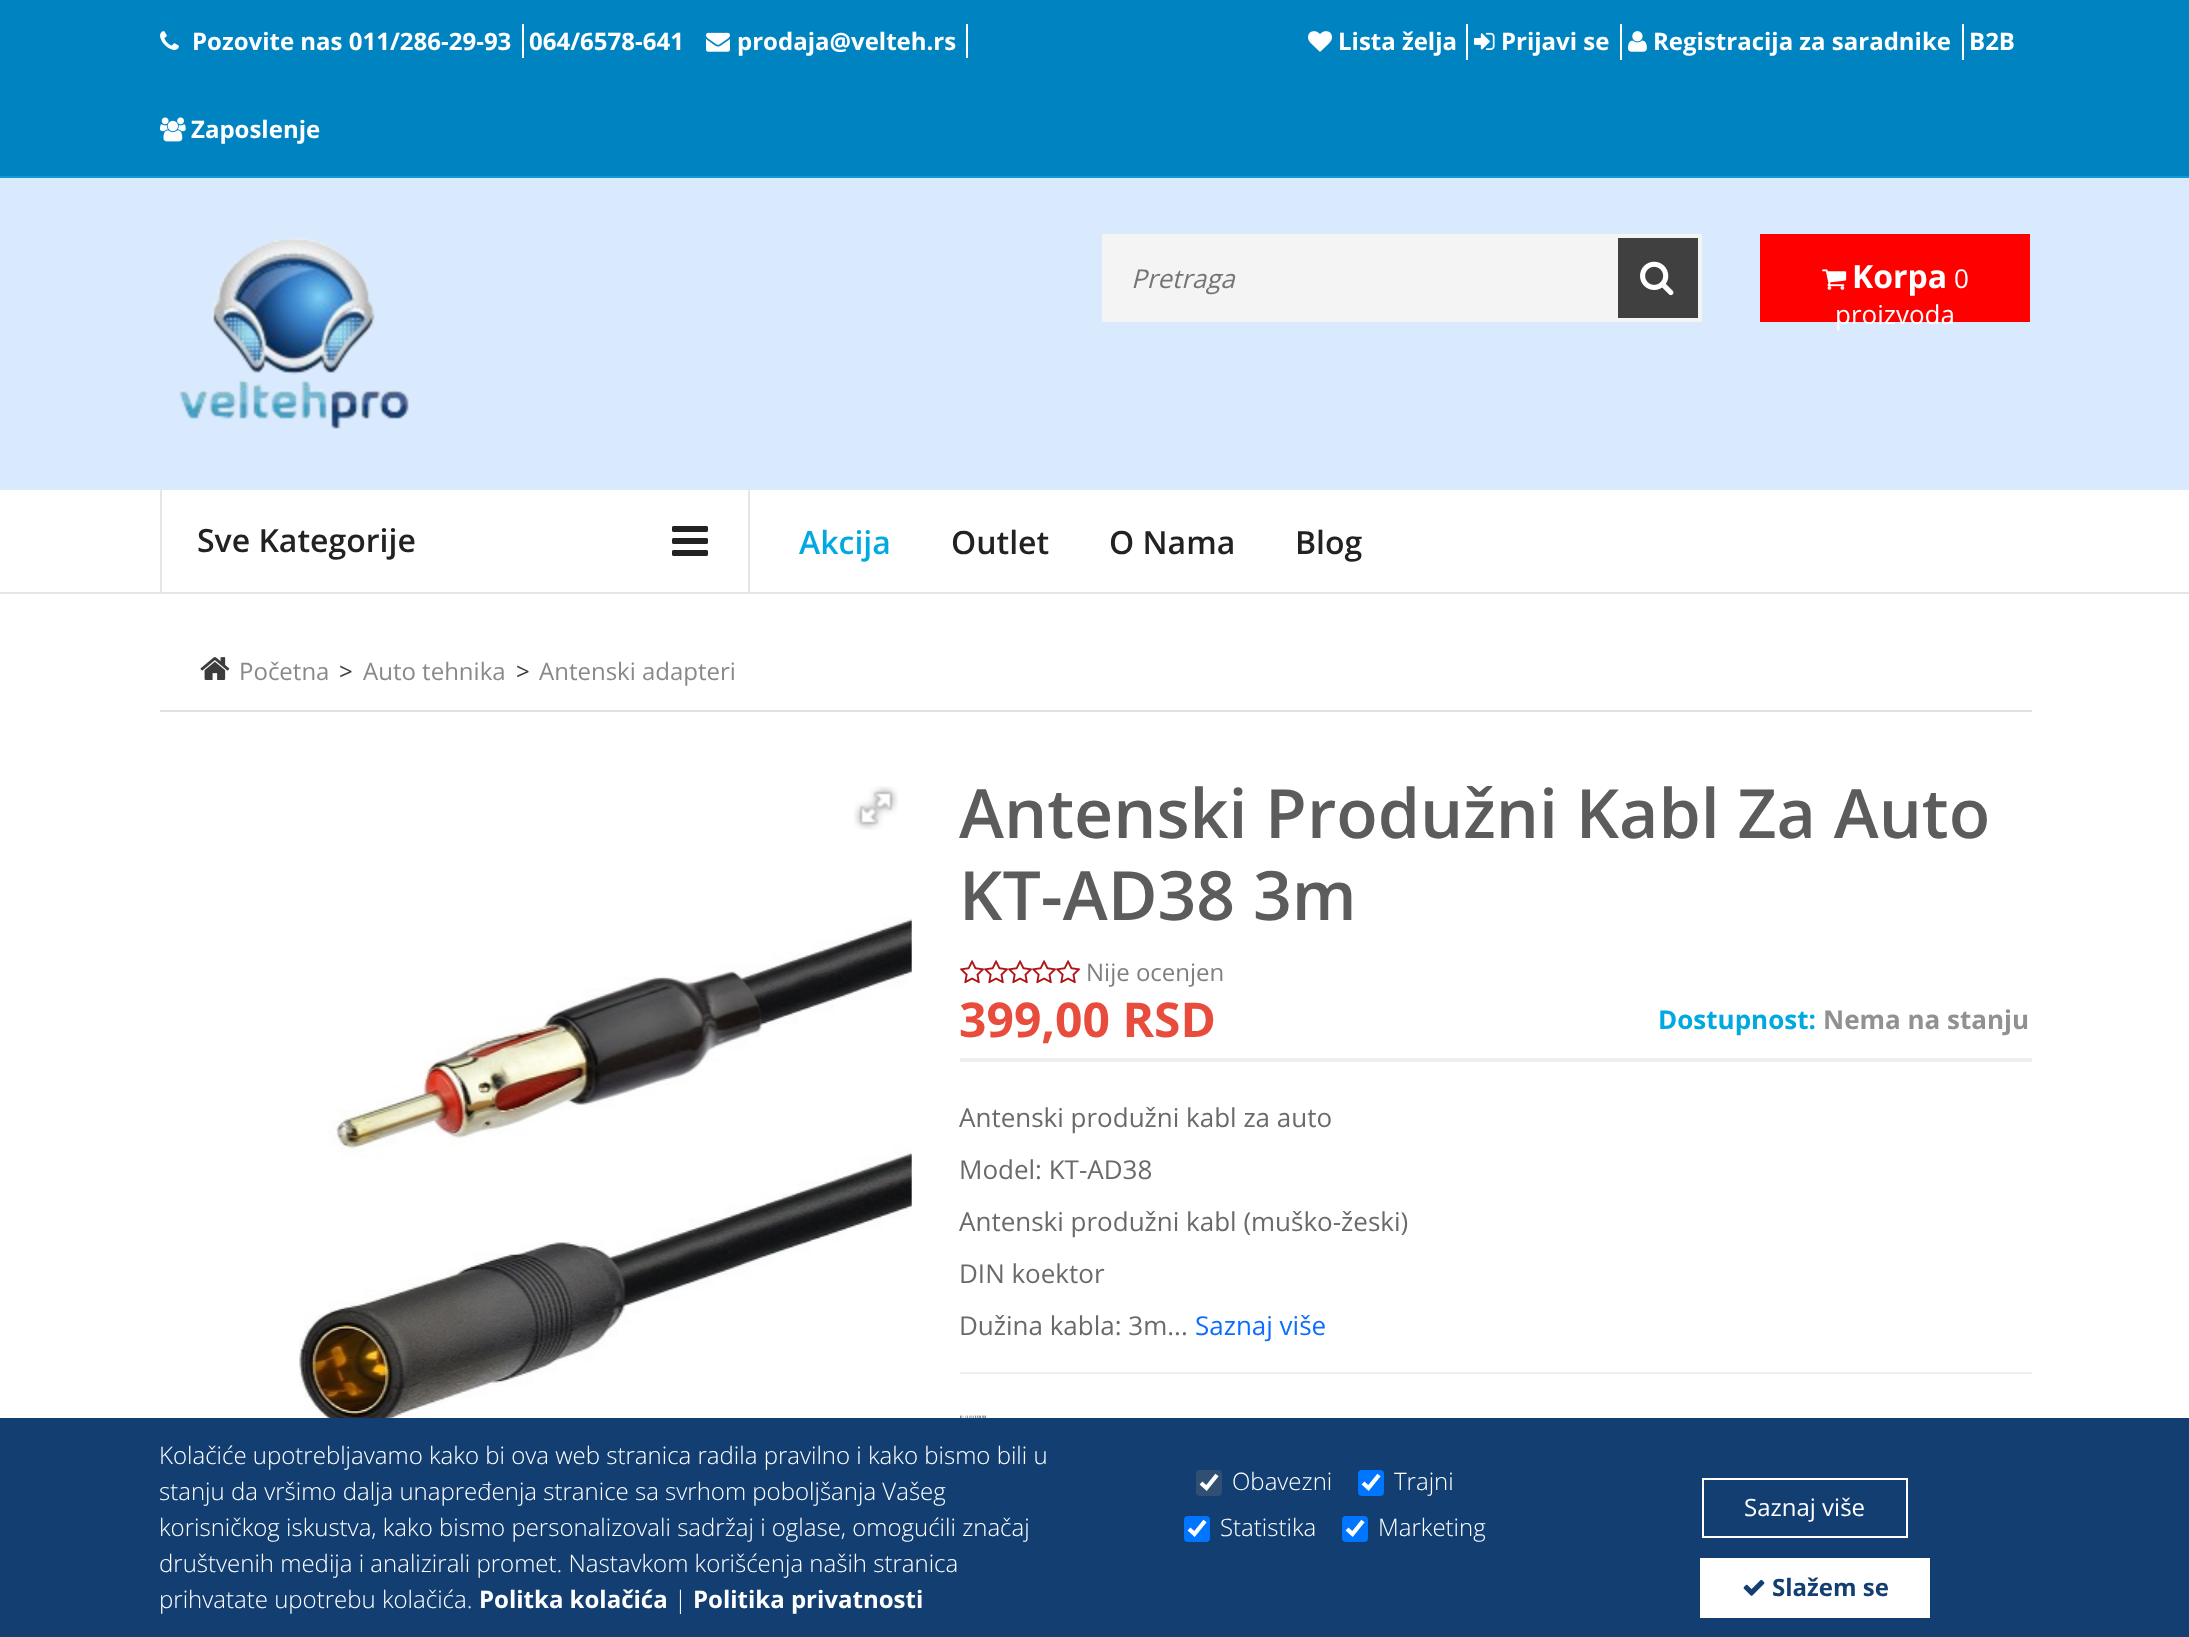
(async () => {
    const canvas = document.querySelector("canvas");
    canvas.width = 2189;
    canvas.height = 1637;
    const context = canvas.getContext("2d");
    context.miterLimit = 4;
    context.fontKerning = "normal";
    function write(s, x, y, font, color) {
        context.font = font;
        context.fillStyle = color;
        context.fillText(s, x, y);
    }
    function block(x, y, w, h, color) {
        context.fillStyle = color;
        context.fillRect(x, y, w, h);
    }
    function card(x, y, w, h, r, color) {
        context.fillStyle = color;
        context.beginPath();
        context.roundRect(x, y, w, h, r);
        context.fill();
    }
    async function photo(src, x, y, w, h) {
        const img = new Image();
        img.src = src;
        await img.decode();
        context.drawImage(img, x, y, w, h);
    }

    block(0, 0, 2189, 1637, "rgb(255, 255, 255)");
    block(0, 0, 2189, 176, "rgb(0, 131, 193)");
    block(0, 176, 2189, 2, "rgb(17, 152, 216)");
    await photo("media/1.png", 160, 31, 19, 19);
    write("Pozovite nas 011/286-29-93", 192, 50, "bold 24px Open Sans", "rgb(255, 255, 255)");
    write("064/6578-641", 529, 50, "bold 24px Open Sans", "rgb(255, 255, 255)");
    block(522, 24, 2, 34, "rgb(255, 255, 255)");
    await photo("media/2.png", 706, 32, 24, 20);
    write("prodaja@velteh.rs", 737, 50, "bold 24px Open Sans", "rgb(255, 255, 255)");
    block(966, 24, 2, 34, "rgb(255, 255, 255)");
    await photo("media/3.png", 160, 117, 26, 25);
    write("Zaposlenje", 191, 138, "bold 24px Open Sans", "rgb(255, 255, 255)");
    block(1466, 24, 2, 36, "rgb(255, 255, 255)");
    await photo("media/4.png", 1308, 31, 24, 21);
    write("Lista želja", 1338, 50, "bold 24px Open Sans", "rgb(255, 255, 255)");
    block(1620, 24, 2, 36, "rgb(255, 255, 255)");
    await photo("media/5.png", 1474, 32, 21, 18);
    write("Prijavi se", 1501, 50, "bold 24px Open Sans", "rgb(255, 255, 255)");
    block(1962, 24, 2, 36, "rgb(255, 255, 255)");
    await photo("media/6.png", 1628, 31, 19, 21);
    write("Registracija za saradnike", 1653, 50, "bold 24px Open Sans", "rgb(255, 255, 255)");
    write("B2B", 1969, 50, "bold 24px Open Sans", "rgb(255, 255, 255)");
    block(0, 178, 2189, 312, "rgb(217, 234, 255)");
    await photo("media/7.png", 178, 237, 231, 192);
    block(1102, 234, 600, 88, "rgb(244, 244, 244)");
    write("Pretraga", 1131, 288, "italic 26px Open Sans", "rgb(117, 117, 117)");
    block(1618, 238, 80, 80, "rgb(64, 64, 64)");
    await photo("media/8.png", 1640, 261, 34, 35);
    block(1760, 234, 270, 88, "rgb(255, 0, 0)");
    await photo("media/9.png", 1822, 269, 25, 21);
    write("Korpa", 1852, 288, "bold 32px Open Sans", "rgb(255, 255, 255)");
    write("0", 1954, 288, "26px Open Sans", "rgb(255, 255, 255)");
    write("proizvoda", 1835, 324, "26px Open Sans", "rgb(255, 255, 255)");
    block(0, 592, 2189, 2, "rgb(229, 229, 229)");
    block(748, 490, 2, 102, "rgb(229, 229, 229)");
    block(160, 490, 2, 102, "rgb(229, 229, 229)");
    write("Sve Kategorije", 197, 552, "600 32px Open Sans", "rgb(34, 34, 34)");
    await photo("media/10.png", 672, 526, 36, 30);
    write("Akcija", 799, 554, "600 32px Open Sans", "rgb(0, 169, 224)");
    write("Outlet", 951, 554, "600 32px Open Sans", "rgb(34, 34, 34)");
    write("O Nama", 1109, 554, "600 32px Open Sans", "rgb(34, 34, 34)");
    write("Blog", 1295, 554, "600 32px Open Sans", "rgb(34, 34, 34)");
    block(160, 710, 1872, 2, "rgb(225, 225, 225)");
    await photo("media/11.png", 200, 657, 30, 23);
    write("Početna", 239, 680, "24px Open Sans", "rgb(137, 137, 137)");
    write(">", 339, 680, "24px Open Sans", "rgb(60, 60, 60)");
    write("Auto tehnika", 363, 680, "24px Open Sans", "rgb(137, 137, 137)");
    write(">", 516, 680, "24px Open Sans", "rgb(60, 60, 60)");
    write("Antenski adapteri", 539, 680, "24px Open Sans", "rgb(137, 137, 137)");
    await photo("media/12.png", 854, 786, 44, 44);
    await photo("media/13.png", 299, 917, 613, 501);
    write("Antenski Produžni Kabl Za Auto", 959, 838, "600 68px Open Sans", "rgb(92, 92, 92)");
    write("KT-AD38 3m", 959, 920, "600 68px Open Sans", "rgb(92, 92, 92)");
    await photo("media/14.png", 960, 960, 25, 24);
    await photo("media/15.png", 984, 960, 25, 24);
    await photo("media/15.png", 1008, 960, 25, 24);
    await photo("media/15.png", 1032, 960, 25, 24);
    await photo("media/15.png", 1056, 960, 25, 24);
    write("Nije ocenjen", 1086, 981, "24px Open Sans", "rgb(127, 127, 127)");
    write("399,00 RSD", 959, 1037, "bold 48px Open Sans", "rgb(231, 76, 60)");
    write("Dostupnost:", 1658, 1029, "bold 26px Open Sans", "rgb(0, 169, 224)");
    write("Nema na stanju", 1823, 1029, "bold 26px Open Sans", "rgb(145, 145, 145)");
    block(960, 1058, 1072, 4, "rgb(238, 238, 238)");
    block(960, 1372, 1072, 2, "rgb(238, 238, 238)");
    write("Antenski produžni kabl za auto", 959, 1127, "26px Open Sans", "rgb(106, 106, 106)");
    write("Model: KT-AD38", 959, 1179, "26px Open Sans", "rgb(106, 106, 106)");
    write("Antenski produžni kabl (muško-žeski)", 959, 1231, "26px Open Sans", "rgb(106, 106, 106)");
    write("DIN koektor", 959, 1283, "26px Open Sans", "rgb(106, 106, 106)");
    write("Dužina kabla: 3m...", 959, 1335, "26px Open Sans", "rgb(106, 106, 106)");
    write("Saznaj više", 1195, 1335, "26px Open Sans", "rgb(13, 110, 253)");
    await photo("media/16.png", 960, 1415, 26, 3);
    block(0, 1418, 2189, 219, "rgb(18, 62, 113)");
    write("Kolačiće upotrebljavamo kako bi ova web stranica radila pravilno i kako bismo bili u", 159, 1464, "300 24px Open Sans", "rgb(255, 255, 255)");
    write("stanju da vršimo dalja unapređenja stranice sa svrhom poboljšanja Vašeg", 159, 1500, "300 24px Open Sans", "rgb(255, 255, 255)");
    write("korisničkog iskustva, kako bismo personalizovali sadržaj i oglase, omogućili značaj", 159, 1536, "300 24px Open Sans", "rgb(255, 255, 255)");
    write("društvenih medija i analizirali promet. Nastavkom korišćenja naših stranica", 159, 1572, "300 24px Open Sans", "rgb(255, 255, 255)");
    write("prihvatate upotrebu kolačića.", 159, 1608, "300 24px Open Sans", "rgb(255, 255, 255)");
    write("Politka kolačića", 479, 1608, "bold 24px Open Sans", "rgb(255, 255, 255)");
    write("|", 674, 1608, "300 24px Open Sans", "rgb(255, 255, 255)");
    write("Politika privatnosti", 693, 1608, "bold 24px Open Sans", "rgb(255, 255, 255)");
    card(1196, 1470, 26, 26, 4, "rgb(48, 79, 115)");
    context.beginPath();
    context.moveTo(1201, 1483);
    context.lineTo(1206.5, 1488);
    context.lineTo(1217, 1475);
    context.strokeStyle = "rgb(255, 255, 255)";
    context.lineWidth = 4.2;
    context.stroke();
    write("Obavezni", 1232, 1490, "300 24px Open Sans", "rgb(255, 255, 255)");
    card(1358, 1470, 26, 26, 4, "rgb(0, 117, 255)");
    context.beginPath();
    context.moveTo(1363, 1483);
    context.lineTo(1368.5, 1488);
    context.lineTo(1379, 1475);
    context.stroke();
    write("Trajni", 1394, 1490, "300 24px Open Sans", "rgb(255, 255, 255)");
    card(1184, 1516, 26, 26, 4, "rgb(0, 117, 255)");
    context.beginPath();
    context.moveTo(1189, 1529);
    context.lineTo(1194.5, 1534);
    context.lineTo(1205, 1521);
    context.stroke();
    write("Statistika", 1220, 1536, "300 24px Open Sans", "rgb(255, 255, 255)");
    card(1342, 1516, 26, 26, 4, "rgb(0, 117, 255)");
    context.beginPath();
    context.moveTo(1347, 1529);
    context.lineTo(1352.5, 1534);
    context.lineTo(1363, 1521);
    context.stroke();
    write("Marketing", 1378, 1536, "300 24px Open Sans", "rgb(255, 255, 255)");
    context.lineWidth = 2;
    context.strokeRect(1703, 1479, 204, 58);
    write("Saznaj više", 1744, 1516, "24px Open Sans", "rgb(255, 255, 255)");
    block(1700, 1558, 230, 60, "rgb(255, 255, 255)");
    await photo("media/17.png", 1743, 1579, 22, 17);
    write("Slažem se", 1772, 1596, "bold 24px Open Sans", "rgb(18, 62, 113)");
})();
